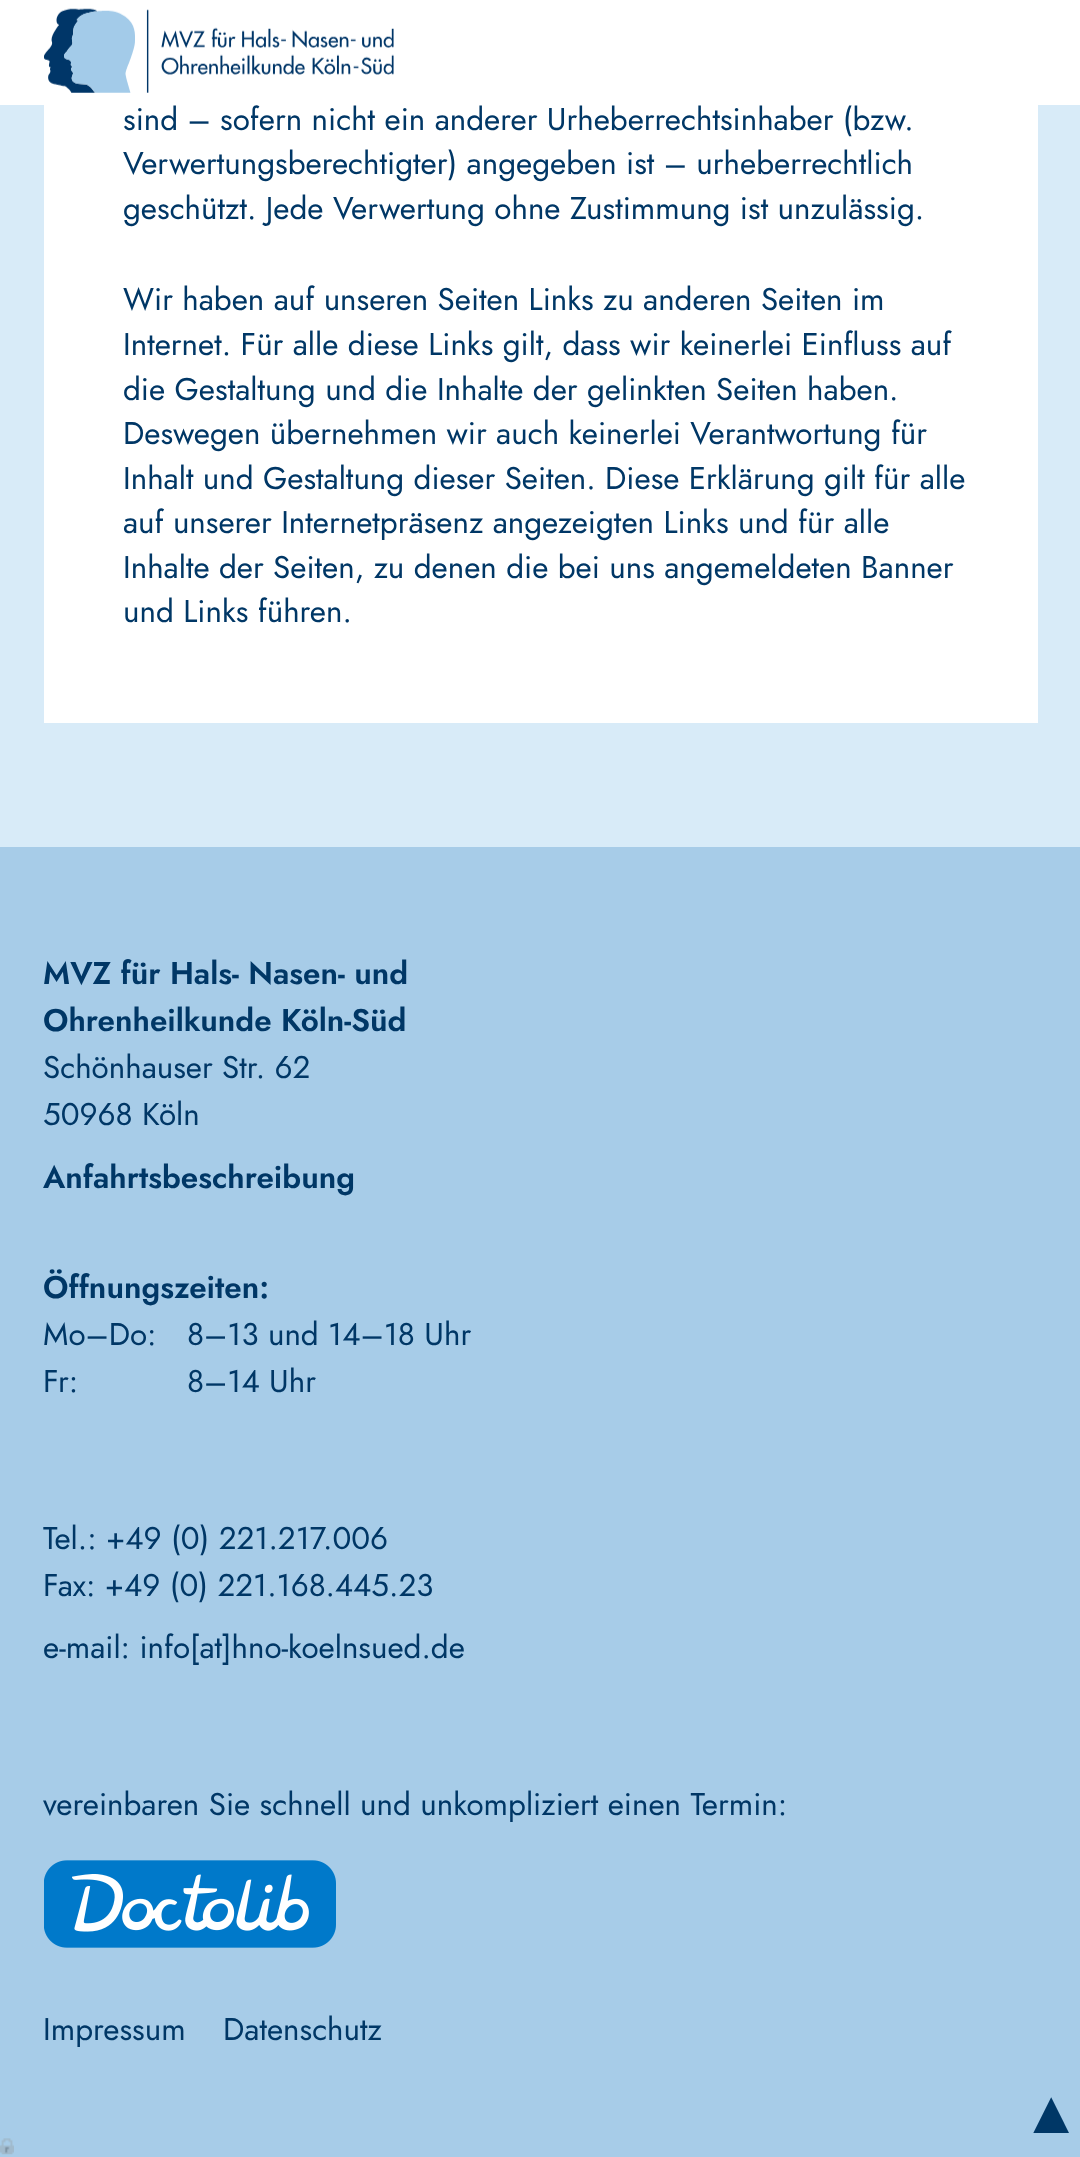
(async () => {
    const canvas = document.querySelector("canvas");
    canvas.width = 1080;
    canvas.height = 2157;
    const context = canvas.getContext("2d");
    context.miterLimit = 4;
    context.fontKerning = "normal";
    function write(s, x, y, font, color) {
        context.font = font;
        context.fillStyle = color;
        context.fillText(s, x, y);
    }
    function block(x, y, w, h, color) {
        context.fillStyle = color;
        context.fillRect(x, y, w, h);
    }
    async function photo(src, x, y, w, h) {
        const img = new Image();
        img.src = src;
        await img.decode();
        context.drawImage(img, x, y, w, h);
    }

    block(0, 0, 1080, 2157, "rgb(216, 235, 248)");
    block(0, 0, 1080, 105, "rgb(255, 255, 255)");
    await photo("media/1.png", 44, 8, 350, 85);
    block(44, 105, 994, 618, "rgb(255, 255, 255)");
    write("sind – sofern nicht ein anderer Urheberrechtsinhaber (bzw.", 123, 130, "31.35px Jost", "rgb(0, 55, 102)");
    write("Verwertungsberechtigter) angegeben ist – urheberrechtlich", 123, 174, "31.35px Jost", "rgb(0, 55, 102)");
    write("geschützt. Jede Verwertung ohne Zustimmung ist unzulässig.", 123, 219, "31.35px Jost", "rgb(0, 55, 102)");
    write("Wir haben auf unseren Seiten Links zu anderen Seiten im", 123, 310, "31.35px Jost", "rgb(0, 55, 102)");
    write("Internet. Für alle diese Links gilt, dass wir keinerlei Einfluss auf", 123, 355, "31.35px Jost", "rgb(0, 55, 102)");
    write("die Gestaltung und die Inhalte der gelinkten Seiten haben.", 123, 400, "31.35px Jost", "rgb(0, 55, 102)");
    write("Deswegen übernehmen wir auch keinerlei Verantwortung für", 123, 444, "31.35px Jost", "rgb(0, 55, 102)");
    write("Inhalt und Gestaltung dieser Seiten. Diese Erklärung gilt für alle", 123, 489, "31.35px Jost", "rgb(0, 55, 102)");
    write("auf unserer Internetpräsenz angezeigten Links und für alle", 123, 533, "31.35px Jost", "rgb(0, 55, 102)");
    write("Inhalte der Seiten, zu denen die bei uns angemeldeten Banner", 123, 578, "31.35px Jost", "rgb(0, 55, 102)");
    write("und Links führen.", 123, 622, "31.35px Jost", "rgb(0, 55, 102)");
    block(0, 847, 1080, 1310, "rgb(167, 204, 232)");
    write("MVZ für Hals- Nasen- und", 43, 984, "600 31.35px Jost", "rgb(0, 55, 102)");
    write("Ohrenheilkunde Köln-Süd", 43, 1031, "600 31.35px Jost", "rgb(0, 55, 102)");
    write("Schönhauser Str. 62", 43, 1078, "31.35px Jost", "rgb(0, 55, 102)");
    write("50968 Köln", 43, 1125, "31.35px Jost", "rgb(0, 55, 102)");
    write("Anfahrtsbeschreibung", 43, 1188, "600 31.35px Jost", "rgb(0, 55, 102)");
    write("Öffnungszeiten:", 43, 1298, "600 31.35px Jost", "rgb(0, 55, 102)");
    write("Mo–Do:", 43, 1345, "31.35px Jost", "rgb(0, 55, 102)");
    write("8–13 und 14–18 Uhr", 187, 1345, "31.35px Jost", "rgb(0, 55, 102)");
    write("Fr:", 43, 1392, "31.35px Jost", "rgb(0, 55, 102)");
    write("8–14 Uhr", 187, 1392, "31.35px Jost", "rgb(0, 55, 102)");
    write("Tel.: +49 (0) 221.217.006", 43, 1549, "31.35px Jost", "rgb(0, 55, 102)");
    write("Fax: +49 (0) 221.168.445.23", 43, 1596, "31.35px Jost", "rgb(0, 55, 102)");
    write("e-mail: info[at]hno-koelnsued.de", 43, 1658, "31.35px Jost", "rgb(0, 55, 102)");
    write("vereinbaren Sie schnell und unkompliziert einen Termin:", 43, 1815, "31.35px Jost", "rgb(0, 55, 102)");
    await photo("media/2.png", 44, 1860, 292, 88);
    write("Impressum", 43, 2040, "31.35px Jost", "rgb(0, 55, 102)");
    write("Datenschutz", 223, 2040, "31.35px Jost", "rgb(0, 55, 102)");
    write("▲", 1021, 2133, "61px Liberation Sans", "rgb(0, 55, 102)");
    await photo("media/3.png", 0, 2138, 14, 17);
})();
